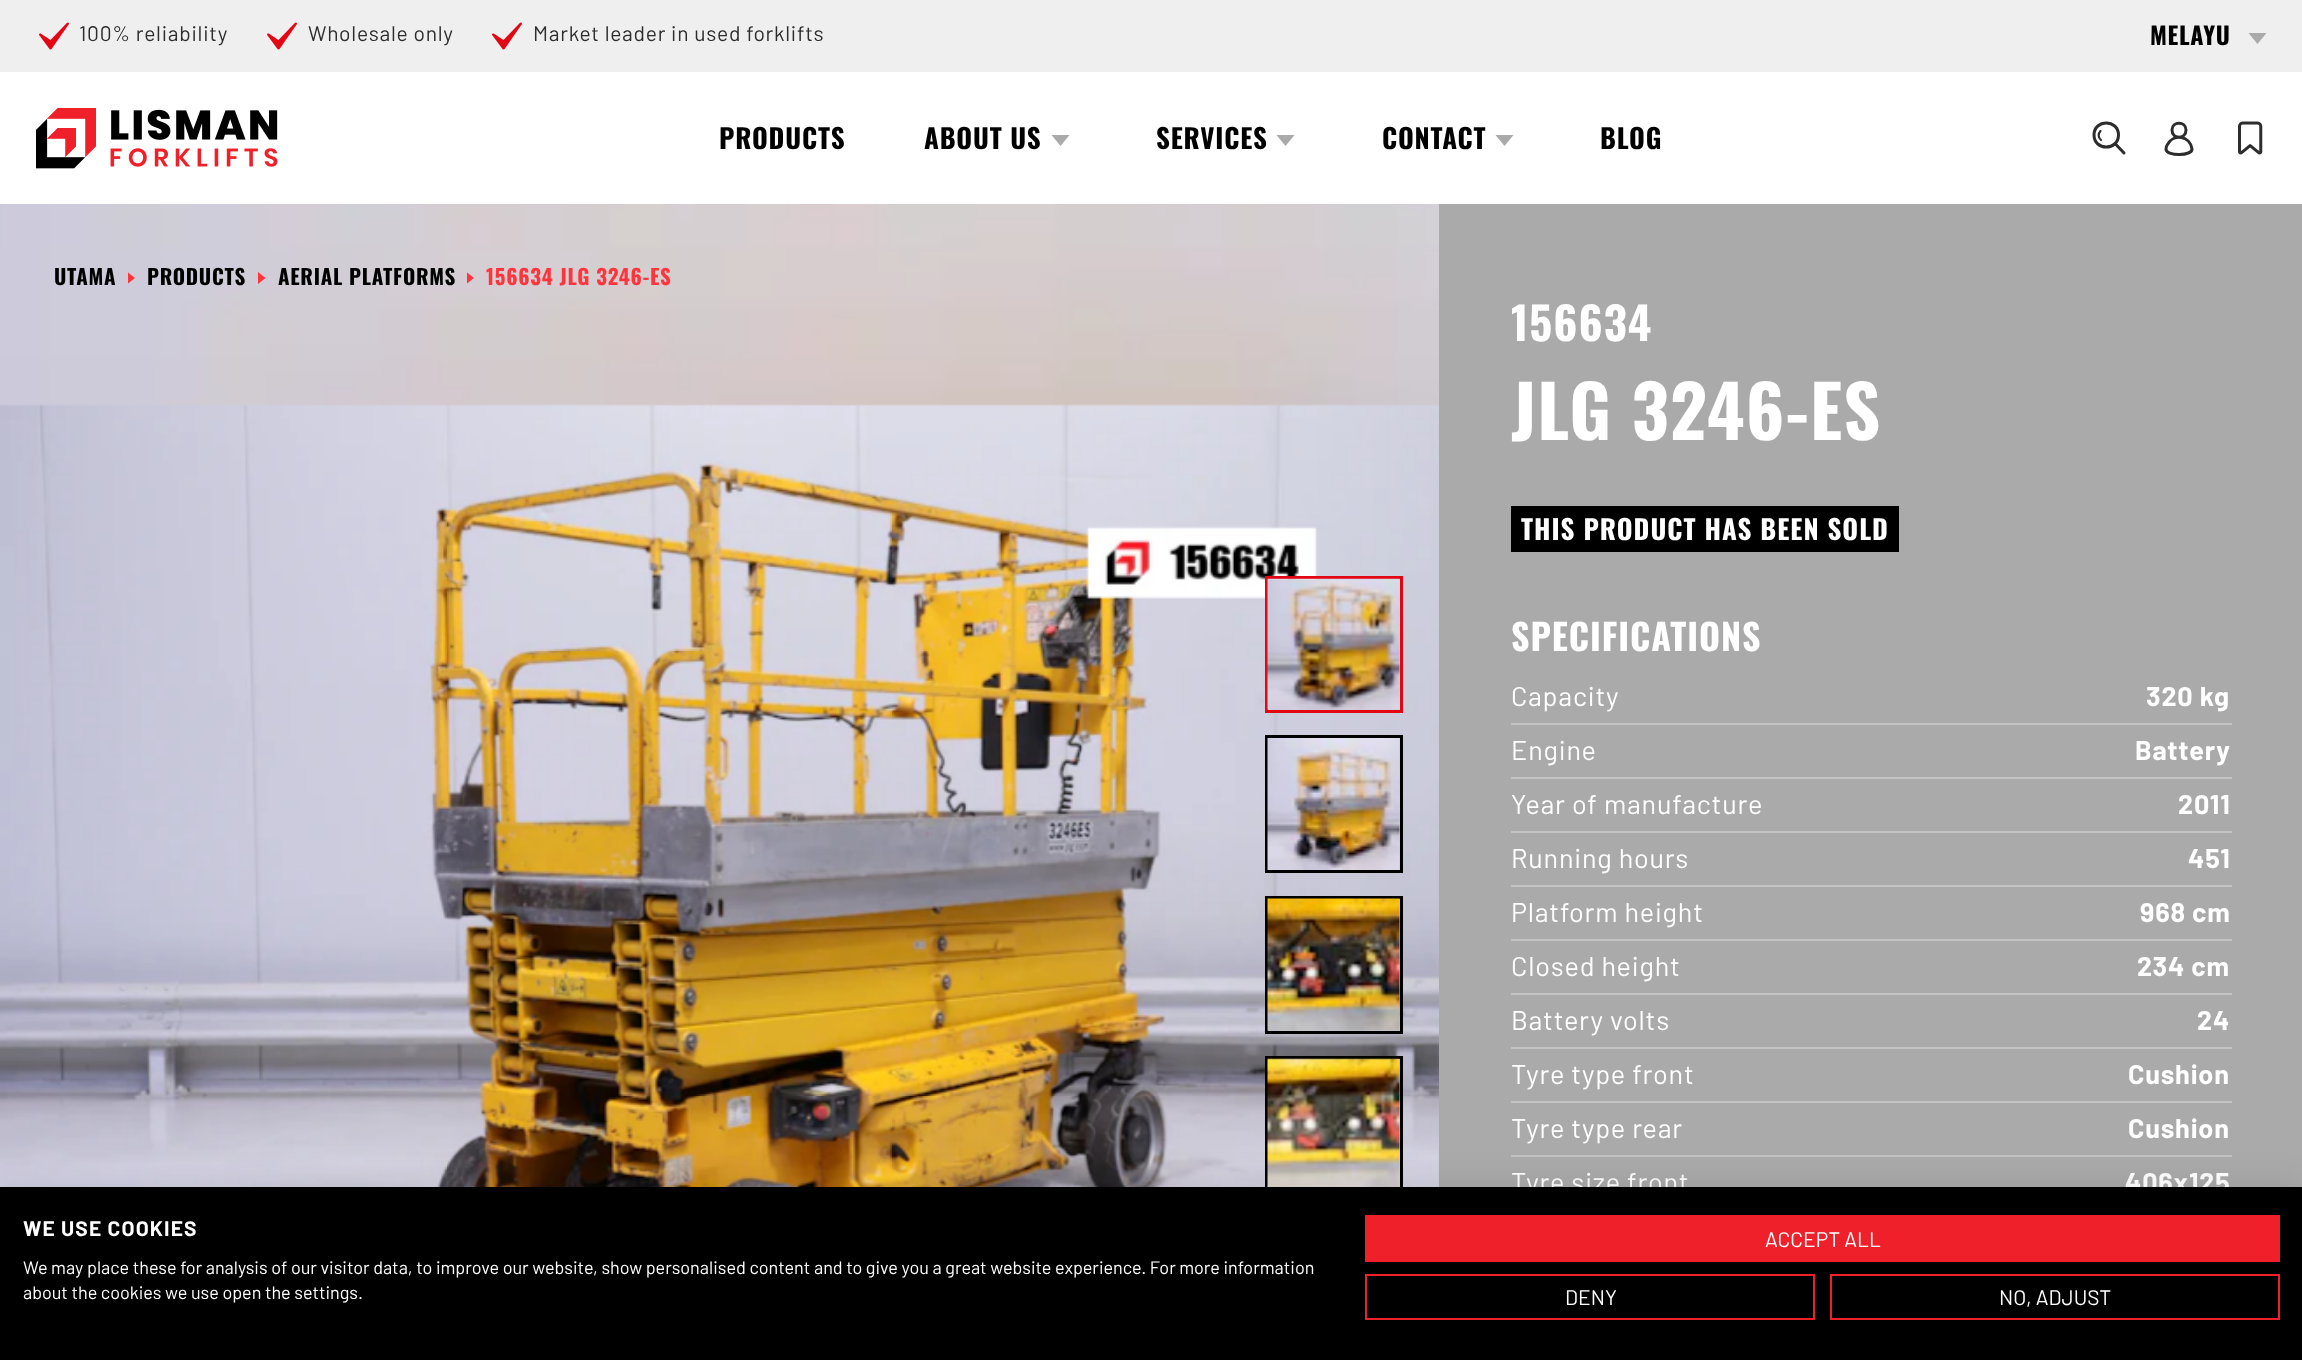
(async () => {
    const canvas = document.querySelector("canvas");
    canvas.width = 2302;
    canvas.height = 1360;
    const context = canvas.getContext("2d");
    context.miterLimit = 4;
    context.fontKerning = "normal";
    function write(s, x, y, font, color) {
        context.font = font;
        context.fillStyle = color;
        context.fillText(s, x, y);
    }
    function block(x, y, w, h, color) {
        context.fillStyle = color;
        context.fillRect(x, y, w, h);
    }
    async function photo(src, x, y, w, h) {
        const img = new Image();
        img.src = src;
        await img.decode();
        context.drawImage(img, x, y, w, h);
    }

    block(0, 0, 2302, 1360, "rgb(255, 255, 255)");
    block(0, 0, 2302, 72, "rgb(239, 239, 239)");
    await photo("media/1.png", 39, 22, 30, 28);
    context.letterSpacing = "0.75px";
    write("100% reliability", 79, 41, "21px Barlow", "rgb(45, 45, 45)");
    await photo("media/1.png", 267, 22, 30, 28);
    write("Wholesale only", 308, 41, "21px Barlow", "rgb(45, 45, 45)");
    await photo("media/1.png", 492, 22, 30, 28);
    write("Market leader in used forklifts", 533, 41, "21px Barlow", "rgb(45, 45, 45)");
    context.fillStyle = "rgb(170, 170, 170)";
    context.beginPath();
    context.moveTo(2257.5, 44);
    context.lineTo(2266.5, 33);
    context.lineTo(2248.5, 33);
    context.closePath();
    context.fill("evenodd");
    context.letterSpacing = "0.7px";
    write("MELAYU", 2150, 45, "bold 24px Oswald", "rgb(0, 0, 0)");
    await photo("media/2.png", 36, 108, 242, 61);
    context.letterSpacing = "0.8px";
    write("PRODUCTS", 719, 149, "bold 27px Oswald", "rgb(0, 0, 0)");
    write("ABOUT US", 924, 149, "bold 27px Oswald", "rgb(0, 0, 0)");
    context.fillStyle = "rgb(170, 170, 170)";
    context.beginPath();
    context.moveTo(1060.5, 146);
    context.lineTo(1069.5, 135);
    context.lineTo(1051.5, 135);
    context.closePath();
    context.fill("evenodd");
    write("SERVICES", 1156, 149, "bold 27px Oswald", "rgb(0, 0, 0)");
    context.fillStyle = "rgb(170, 170, 170)";
    context.beginPath();
    context.moveTo(1285.5, 146);
    context.lineTo(1294.5, 135);
    context.lineTo(1276.5, 135);
    context.closePath();
    context.fill("evenodd");
    write("CONTACT", 1382, 149, "bold 27px Oswald", "rgb(0, 0, 0)");
    context.fillStyle = "rgb(170, 170, 170)";
    context.beginPath();
    context.moveTo(1504.5, 146);
    context.lineTo(1513.5, 135);
    context.lineTo(1495.5, 135);
    context.closePath();
    context.fill("evenodd");
    write("BLOG", 1600, 149, "bold 27px Oswald", "rgb(0, 0, 0)");
    context.beginPath();
    context.moveTo(2118.5, 135);
    context.bezierCurveTo(2118.5, 151, 2094, 151, 2094, 135);
    context.bezierCurveTo(2094, 119, 2118.5, 119, 2118.5, 135);
    context.closePath();
    context.strokeStyle = "rgb(45, 45, 45)";
    context.lineWidth = 3;
    context.lineCap = "round";
    context.stroke();
    context.beginPath();
    context.moveTo(2101, 140);
    context.bezierCurveTo(2098, 137.5, 2098, 133.5, 2100.5, 131);
    context.lineWidth = 2.2;
    context.stroke();
    context.beginPath();
    context.moveTo(2115, 143.5);
    context.lineTo(2124, 153);
    context.lineWidth = 3;
    context.stroke();
    context.beginPath();
    context.moveTo(2192, 149);
    context.bezierCurveTo(2192.5, 156, 2167, 156.5, 2166, 149.5);
    context.bezierCurveTo(2166, 148, 2166.5, 145.5, 2167.5, 144.5);
    context.bezierCurveTo(2173.5, 133, 2190.5, 136, 2192, 149);
    context.closePath();
    context.moveTo(2186, 130);
    context.bezierCurveTo(2186, 139.5, 2172, 139.5, 2172, 130);
    context.bezierCurveTo(2172, 121, 2186, 121, 2186, 130);
    context.closePath();
    context.stroke();
    await photo("media/3.png", 2238, 121, 25, 34);
    await photo("media/4.png", 0, 204, 1439, 983);
    await photo("media/5.png", 0, 404, 1439, 783);
    context.strokeStyle = "rgb(227, 6, 19)";
    context.strokeRect(1266.5, 577.5, 135, 134);
    await photo("media/6.png", 1267, 578, 133, 132);
    context.strokeStyle = "rgb(0, 0, 0)";
    context.strokeRect(1266.5, 736.5, 135, 135);
    await photo("media/7.png", 1267, 738, 133, 132);
    context.strokeRect(1266.5, 897.5, 135, 135);
    await photo("media/8.png", 1267, 898, 133, 133);
    context.strokeRect(1266.5, 1057.5, 135, 135);
    await photo("media/9.png", 1267, 1058, 133, 129);
    context.letterSpacing = "0.7px";
    write("UTAMA", 54, 285, "bold 21px Oswald", "rgb(0, 0, 0)");
    context.save();
    context.beginPath();
    context.rect(128, 272, 7, 13);
    context.clip();
    context.fillStyle = "rgb(255, 52, 61)";
    context.beginPath();
    context.moveTo(135, 278);
    context.lineTo(127.5, 272);
    context.lineTo(127.5, 284);
    context.closePath();
    context.fill("evenodd");
    context.restore();
    write("PRODUCTS", 147, 285, "bold 21px Oswald", "rgb(0, 0, 0)");
    context.fillStyle = "rgb(255, 52, 61)";
    context.beginPath();
    context.moveTo(265.5, 278);
    context.lineTo(258, 272);
    context.lineTo(258, 284);
    context.closePath();
    context.fill("evenodd");
    write("AERIAL PLATFORMS", 278, 285, "bold 21px Oswald", "rgb(0, 0, 0)");
    context.save();
    context.beginPath();
    context.rect(467, 272, 7, 13);
    context.clip();
    context.fillStyle = "rgb(255, 52, 61)";
    context.beginPath();
    context.moveTo(474, 278);
    context.lineTo(466.5, 272);
    context.lineTo(466.5, 284);
    context.closePath();
    context.fill("evenodd");
    context.restore();
    write("156634 JLG 3246-ES", 486, 285, "bold 21px Oswald", "rgb(255, 52, 61)");
    block(1439, 204, 863, 983, "rgb(170, 170, 170)");
    context.letterSpacing = "1px";
    write("156634", 1511, 341, "bold 45px Oswald", "rgb(255, 255, 255)");
    context.letterSpacing = "1.1px";
    write("JLG 3246-ES", 1511, 440, "bold 72px Oswald", "rgb(255, 255, 255)");
    block(1511, 506, 388, 46, "rgb(0, 0, 0)");
    context.letterSpacing = "1px";
    write("THIS PRODUCT HAS BEEN SOLD", 1521, 540, "bold 27px Oswald", "rgb(255, 255, 255)");
    context.letterSpacing = "0.9px";
    write("SPECIFICATIONS", 1511, 651, "bold 36px Oswald", "rgb(255, 255, 255)");
    block(1511, 723, 721, 2, "rgb(196, 196, 196)");
    context.letterSpacing = "0.8px";
    write("Capacity", 1511, 706, "27px Barlow", "rgb(255, 255, 255)");
    write("320 kg", 2146, 706, "bold 27px Barlow", "rgb(255, 255, 255)");
    block(1511, 777, 721, 2, "rgb(196, 196, 196)");
    write("Engine", 1511, 760, "27px Barlow", "rgb(255, 255, 255)");
    write("Battery", 2135, 760, "bold 27px Barlow", "rgb(255, 255, 255)");
    block(1511, 831, 721, 2, "rgb(196, 196, 196)");
    write("Year of manufacture", 1511, 814, "27px Barlow", "rgb(255, 255, 255)");
    write("2011", 2178, 814, "bold 27px Barlow", "rgb(255, 255, 255)");
    block(1511, 885, 721, 2, "rgb(196, 196, 196)");
    write("Running hours", 1511, 868, "27px Barlow", "rgb(255, 255, 255)");
    write("451", 2188, 868, "bold 27px Barlow", "rgb(255, 255, 255)");
    block(1511, 939, 721, 2, "rgb(196, 196, 196)");
    write("Platform height", 1511, 922, "27px Barlow", "rgb(255, 255, 255)");
    write("968 cm", 2140, 922, "bold 27px Barlow", "rgb(255, 255, 255)");
    block(1511, 993, 721, 2, "rgb(196, 196, 196)");
    write("Closed height", 1511, 976, "27px Barlow", "rgb(255, 255, 255)");
    write("234 cm", 2137, 976, "bold 27px Barlow", "rgb(255, 255, 255)");
    block(1511, 1047, 721, 2, "rgb(196, 196, 196)");
    write("Battery volts", 1511, 1030, "27px Barlow", "rgb(255, 255, 255)");
    write("24", 2197, 1030, "bold 27px Barlow", "rgb(255, 255, 255)");
    block(1511, 1101, 721, 2, "rgb(196, 196, 196)");
    write("Tyre type front", 1511, 1084, "27px Barlow", "rgb(255, 255, 255)");
    write("Cushion", 2128, 1084, "bold 27px Barlow", "rgb(255, 255, 255)");
    block(1511, 1155, 721, 2, "rgb(196, 196, 196)");
    write("Tyre type rear", 1511, 1138, "27px Barlow", "rgb(255, 255, 255)");
    write("Cushion", 2128, 1138, "bold 27px Barlow", "rgb(255, 255, 255)");
    write("Tyre size front", 1511, 1192, "27px Barlow", "rgb(255, 255, 255)");
    write("406x125", 2125, 1192, "bold 27px Barlow", "rgb(255, 255, 255)");
    context.fillStyle = "rgba(0, 0, 0, 0.1)";
    context.filter = "blur(18px)";
    context.beginPath();
    context.rect(0, 1187, 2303, 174);
    context.fill();
    context.filter = "none";
    block(0, 1187, 2302, 173, "rgb(0, 0, 0)");
    context.letterSpacing = "1.1px";
    write("WE USE COOKIES", 23, 1236, "bold 21px Barlow", "rgb(255, 255, 255)");
    context.letterSpacing = "0px";
    write("We may place these for analysis of our visitor data, to improve our website, show personalised content and to give you a great website experience. For more information", 23, 1274, "18px Barlow", "rgb(255, 255, 255)");
    write("about the cookies we use open the settings.", 23, 1299, "18px Barlow", "rgb(255, 255, 255)");
    block(1365, 1215, 915, 47, "rgb(239, 32, 41)");
    write("ACCEPT ALL", 1765, 1247, "21px Barlow", "rgb(255, 255, 255)");
    context.strokeStyle = "rgb(239, 32, 41)";
    context.lineWidth = 2;
    context.strokeRect(1366, 1275, 448, 44);
    write("DENY", 1565, 1305, "21px Barlow", "rgb(255, 255, 255)");
    context.strokeRect(1831, 1275, 448, 44);
    write("NO, ADJUST", 1999, 1305, "21px Barlow", "rgb(255, 255, 255)");
})();
